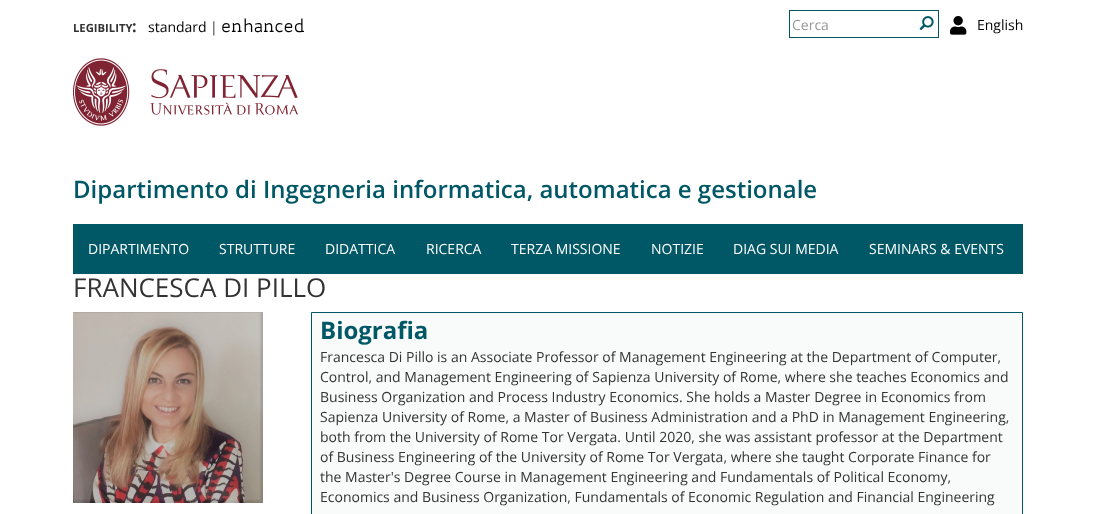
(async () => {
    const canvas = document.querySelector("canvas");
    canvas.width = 1096;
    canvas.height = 514;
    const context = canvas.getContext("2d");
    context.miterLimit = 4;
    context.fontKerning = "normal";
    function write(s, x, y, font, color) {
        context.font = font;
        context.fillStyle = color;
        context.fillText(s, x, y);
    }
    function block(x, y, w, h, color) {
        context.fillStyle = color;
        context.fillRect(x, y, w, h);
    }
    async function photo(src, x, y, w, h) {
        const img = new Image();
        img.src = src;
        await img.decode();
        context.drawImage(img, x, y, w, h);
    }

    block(0, 0, 1096, 514, "rgb(255, 255, 255)");
    write("LEGIBILITY", 73, 32, "bold 11.25px Open Sans", "rgb(51, 51, 51)");
    write(":", 132, 32, "bold 16px Open Sans", "rgb(51, 51, 51)");
    write("standard", 148, 32, "14px Open Sans", "rgb(0, 0, 0)");
    write("|", 210, 32, "14px Open Sans", "rgb(51, 51, 51)");
    write("enhanced", 221, 32, "18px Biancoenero", "rgb(0, 0, 0)");
    block(789, 10, 150, 1, "rgb(0, 88, 102)");
    block(789, 37, 126, 1, "rgb(0, 88, 102)");
    block(789, 10, 1, 28, "rgb(0, 88, 102)");
    write("Cerca", 792, 30, "14px Open Sans", "rgb(153, 153, 153)");
    block(938, 10, 1, 28, "rgb(0, 88, 102)");
    block(914, 37, 25, 1, "rgb(0, 88, 102)");
    await photo("media/1.png", 919, 16, 15, 14);
    await photo("media/2.png", 950, 16, 17, 19);
    write("English", 977, 30, "14px Open Sans", "rgb(0, 0, 0)");
    await photo("media/3.png", 73, 58, 225, 68);
    write("Dipartimento di Ingegneria informatica, automatica e gestionale", 73, 198, "600 24px Open Sans", "rgb(0, 88, 102)");
    block(73, 224, 950, 50, "rgb(0, 88, 102)");
    write("DIPARTIMENTO", 88, 254, "14px Open Sans", "rgb(255, 255, 255)");
    write("STRUTTURE", 219, 254, "14px Open Sans", "rgb(255, 255, 255)");
    write("DIDATTICA", 325, 254, "14px Open Sans", "rgb(255, 255, 255)");
    write("RICERCA", 426, 254, "14px Open Sans", "rgb(255, 255, 255)");
    write("TERZA MISSIONE", 511, 254, "14px Open Sans", "rgb(255, 255, 255)");
    write("NOTIZIE", 651, 254, "14px Open Sans", "rgb(255, 255, 255)");
    write("DIAG SUI MEDIA", 733, 254, "14px Open Sans", "rgb(255, 255, 255)");
    write("SEMINARS & EVENTS", 869, 254, "14px Open Sans", "rgb(255, 255, 255)");
    write("FRANCESCA DI PILLO", 73, 297, "26px Open Sans", "rgb(51, 51, 51)");
    await photo("media/4.png", 73, 312, 190, 191);
    context.fillStyle = "rgb(249, 250, 250)";
    context.beginPath();
    context.rect(311.5, 312.5, 711, 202);
    context.fill();
    context.strokeStyle = "rgb(0, 88, 102)";
    context.stroke();
    write("Biografia", 320, 339, "bold 24px Open Sans", "rgb(0, 88, 102)");
    write("Francesca Di Pillo is an Associate Professor of Management Engineering at the Department of Computer,", 320, 362, "14px Open Sans", "rgb(51, 51, 51)");
    write("Control, and Management Engineering of Sapienza University of Rome, where she teaches Economics and", 320, 382, "14px Open Sans", "rgb(51, 51, 51)");
    write("Business Organization and Process Industry Economics. She holds a Master Degree in Economics from", 320, 402, "14px Open Sans", "rgb(51, 51, 51)");
    write("Sapienza University of Rome, a Master of Business Administration and a PhD in Management Engineering,", 320, 422, "14px Open Sans", "rgb(51, 51, 51)");
    write("both from the University of Rome Tor Vergata. Until 2020, she was assistant professor at the Department", 320, 442, "14px Open Sans", "rgb(51, 51, 51)");
    write("of Business Engineering of the University of Rome Tor Vergata, where she taught Corporate Finance for", 320, 462, "14px Open Sans", "rgb(51, 51, 51)");
    write("the Master's Degree Course in Management Engineering and Fundamentals of Political Economy,", 320, 482, "14px Open Sans", "rgb(51, 51, 51)");
    write("Economics and Business Organization, Fundamentals of Economic Regulation and Financial Engineering", 320, 502, "14px Open Sans", "rgb(51, 51, 51)");
})();
